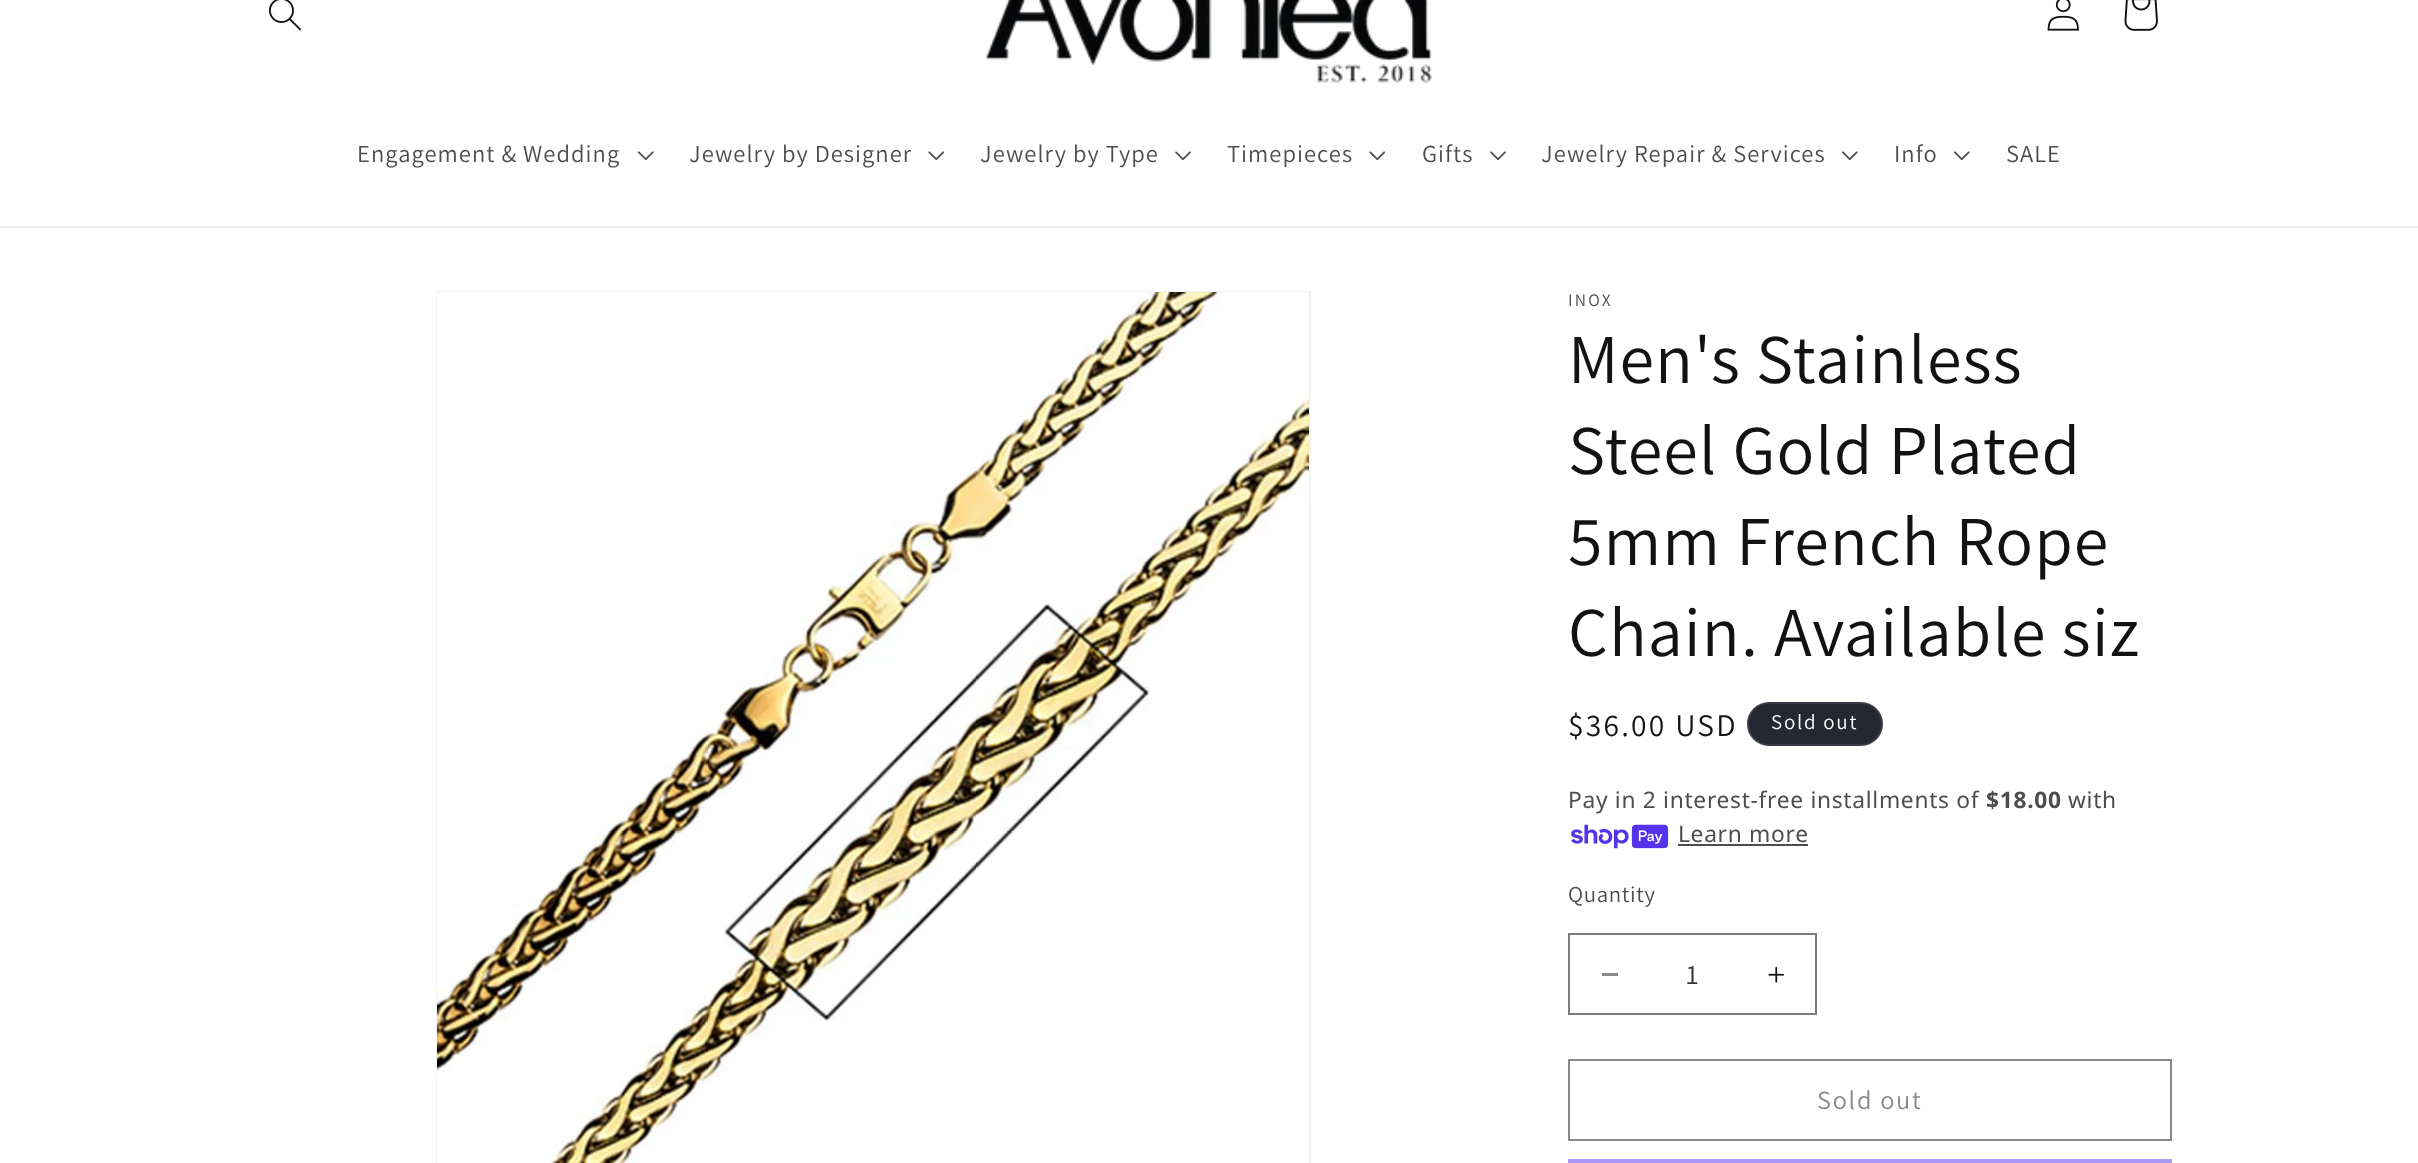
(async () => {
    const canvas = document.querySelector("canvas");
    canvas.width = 2418;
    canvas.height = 1163;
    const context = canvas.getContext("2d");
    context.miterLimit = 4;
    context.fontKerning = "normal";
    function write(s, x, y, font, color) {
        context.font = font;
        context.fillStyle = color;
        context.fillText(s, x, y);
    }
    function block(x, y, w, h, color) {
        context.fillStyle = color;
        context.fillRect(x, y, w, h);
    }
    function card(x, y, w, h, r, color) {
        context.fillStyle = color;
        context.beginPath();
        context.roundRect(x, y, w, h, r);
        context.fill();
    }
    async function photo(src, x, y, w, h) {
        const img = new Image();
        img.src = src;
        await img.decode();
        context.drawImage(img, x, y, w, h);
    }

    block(0, 0, 2418, 1163, "rgb(255, 255, 255)");
    block(0, 226, 2418, 2, "rgb(236, 236, 236)");
    await photo("media/1.png", 269, 0, 32, 31);
    await photo("media/2.png", 985, 0, 447, 83);
    await photo("media/3.png", 2047, 0, 32, 31);
    await photo("media/4.png", 2124, 0, 34, 31);
    context.letterSpacing = "1.05px";
    write("Engagement & Wedding", 357, 162, "24.5px Assistant", "rgb(77, 77, 77)");
    await photo("media/5.png", 637, 151, 17, 10);
    write("Jewelry by Designer", 689, 162, "24.5px Assistant", "rgb(77, 77, 77)");
    await photo("media/6.png", 928, 151, 17, 10);
    write("Jewelry by Type", 980, 162, "24.5px Assistant", "rgb(77, 77, 77)");
    await photo("media/7.png", 1175, 151, 16, 9);
    write("Timepieces", 1227, 162, "24.5px Assistant", "rgb(77, 77, 77)");
    await photo("media/6.png", 1369, 151, 17, 10);
    write("Gifts", 1422, 162, "24.5px Assistant", "rgb(77, 77, 77)");
    await photo("media/7.png", 1490, 151, 16, 9);
    write("Jewelry Repair & Services", 1541, 162, "24.5px Assistant", "rgb(77, 77, 77)");
    await photo("media/5.png", 1841, 151, 17, 10);
    write("Info", 1894, 162, "24.5px Assistant", "rgb(77, 77, 77)");
    await photo("media/5.png", 1953, 151, 17, 10);
    write("SALE", 2006, 162, "24.5px Assistant", "rgb(77, 77, 77)");
    context.strokeStyle = "rgb(243, 243, 243)";
    context.lineWidth = 2;
    context.strokeRect(437, 292, 873, 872);
    await photo("media/8.png", 437, 292, 872, 871);
    context.letterSpacing = "2.25px";
    write("INOX", 1568, 306, "17.5px Assistant", "rgb(77, 77, 77)");
    context.letterSpacing = "1.05px";
    write("Men's Stainless", 1568, 383, "70px Assistant", "rgb(18, 18, 18)");
    write("Steel Gold Plated", 1568, 474, "70px Assistant", "rgb(18, 18, 18)");
    write("5mm French Rope", 1568, 565, "70px Assistant", "rgb(18, 18, 18)");
    write("Chain. Available siz", 1568, 656, "70px Assistant", "rgb(18, 18, 18)");
    context.letterSpacing = "2.25px";
    write("$36.00 USD", 1568, 736, "31.5px Assistant", "rgb(18, 18, 18)");
    card(1747, 702, 136, 44, 22, "rgb(36, 40, 51)");
    context.beginPath();
    context.roundRect(1748, 703, 134, 42, 21);
    context.strokeStyle = "rgba(255, 255, 255, 0.1)";
    context.stroke();
    context.letterSpacing = "1.75px";
    write("Sold out", 1771, 729, "21px Assistant", "rgb(255, 255, 255)");
    context.letterSpacing = "0.7px";
    write("Pay in 2 interest-free installments of", 1568, 808, "22.75px Noto Sans", "rgb(77, 77, 77)");
    write("$18.00", 1986, 808, "bold 22.75px Noto Sans", "rgb(77, 77, 77)");
    write("with", 2068, 808, "22.75px Noto Sans", "rgb(77, 77, 77)");
    await photo("media/9.png", 1571, 824, 98, 25);
    write("Learn more", 1678, 842, "22.75px Noto Sans", "rgb(77, 77, 77)");
    block(1678, 844, 130, 2, "rgb(77, 77, 77)");
    write("Quantity", 1568, 902, "22.75px Assistant", "rgb(77, 77, 77)");
    block(1602, 973, 16, 3, "rgb(137, 137, 137)");
    await photo("media/10.png", 1768, 966, 17, 17);
    context.strokeStyle = "rgb(125, 125, 125)";
    context.strokeRect(1569, 934, 247, 80);
    context.letterSpacing = "0px";
    write("1", 1686, 984, "28px Assistant", "rgb(54, 54, 54)");
    context.strokeStyle = "rgb(137, 137, 137)";
    context.strokeRect(1569, 1060, 602, 80);
    context.letterSpacing = "1.75px";
    write("Sold out", 1817, 1109, "26.25px Assistant", "rgb(137, 137, 137)");
    block(1568, 1159, 604, 4, "rgb(170, 153, 245)");
})();
